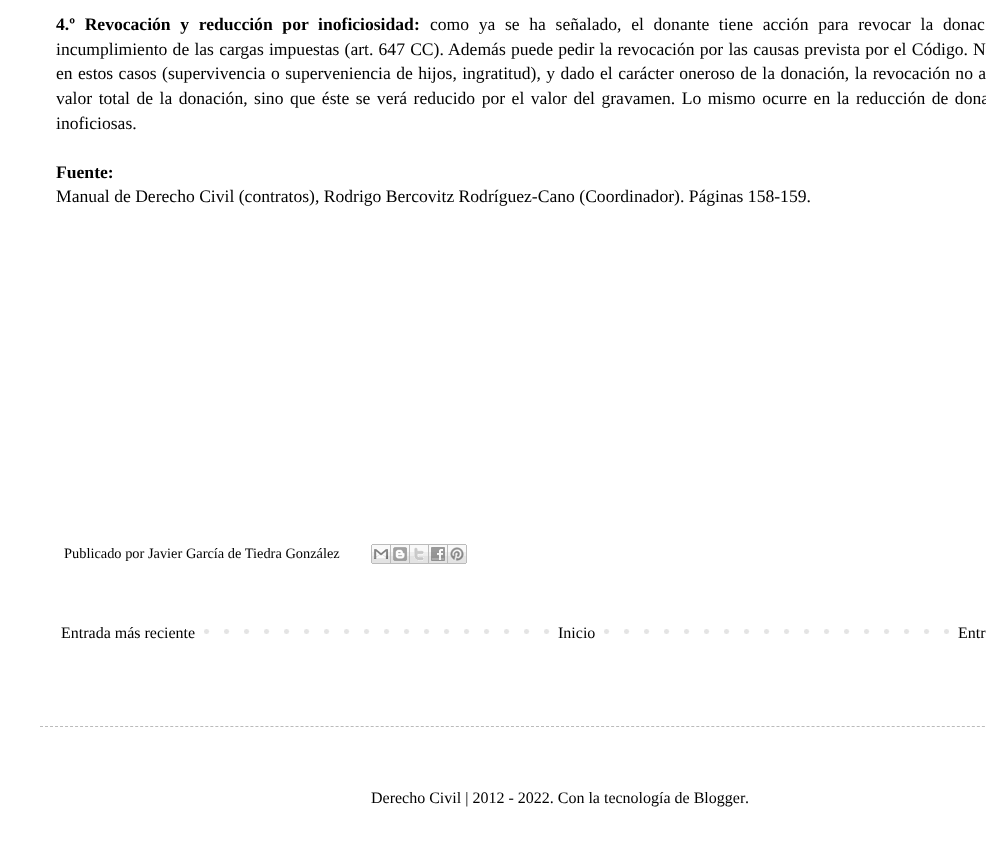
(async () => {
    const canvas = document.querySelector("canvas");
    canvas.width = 986;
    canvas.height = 848;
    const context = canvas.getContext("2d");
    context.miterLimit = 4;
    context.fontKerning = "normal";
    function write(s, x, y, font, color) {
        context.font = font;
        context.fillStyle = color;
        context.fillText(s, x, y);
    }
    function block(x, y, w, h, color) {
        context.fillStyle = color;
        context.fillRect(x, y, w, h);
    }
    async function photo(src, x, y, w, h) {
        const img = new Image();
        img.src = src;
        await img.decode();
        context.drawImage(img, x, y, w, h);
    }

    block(0, 0, 986, 848, "rgb(255, 255, 255)");
    context.wordSpacing = "5.25px";
    write("4.º Revocación y reducción por inoficiosidad:", 56, 30, "bold 17.6px Liberation Serif", "rgb(0, 0, 0)");
    write("como ya se ha señalado, el donante tiene acción para revocar la donac", 430, 30, "17.6px Liberation Serif", "rgb(0, 0, 0)");
    context.wordSpacing = "0.8px";
    write("incumplimiento de las cargas impuestas (art. 647 CC). Además puede pedir la revocación por las causas prevista por el Código. N", 56, 55, "17.6px Liberation Serif", "rgb(0, 0, 0)");
    context.wordSpacing = "1px";
    write("en estos casos (supervivencia o superveniencia de hijos, ingratitud), y dado el carácter oneroso de la donación, la revocación no a", 56, 79, "17.6px Liberation Serif", "rgb(0, 0, 0)");
    context.wordSpacing = "2.1px";
    write("valor total de la donación, sino que éste se verá reducido por el valor del gravamen. Lo mismo ocurre en la reducción de dona", 56, 104, "17.6px Liberation Serif", "rgb(0, 0, 0)");
    context.wordSpacing = "0px";
    write("inoficiosas.", 56, 129, "17.6px Liberation Serif", "rgb(0, 0, 0)");
    write("Fuente:", 56, 178, "bold 17.6px Liberation Serif", "rgb(0, 0, 0)");
    write("Manual de Derecho Civil (contratos), Rodrigo Bercovitz Rodríguez-Cano (Coordinador). Páginas 158-159.", 56, 202, "17.6px Liberation Serif", "rgb(0, 0, 0)");
    write("Publicado por Javier García de Tiedra González", 64, 558, "14.4px Liberation Serif", "rgb(0, 0, 0)");
    await photo("media/1.png", 371, 544, 20, 20);
    await photo("media/2.png", 391, 544, 19, 20);
    await photo("media/3.png", 410, 544, 19, 20);
    await photo("media/4.png", 429, 544, 19, 20);
    await photo("media/5.png", 448, 544, 19, 20);
    await photo("media/6.png", 204, 629, 745, 5);
    write("Entrada más reciente", 61, 638, "16px Liberation Serif", "rgb(0, 0, 0)");
    block(564, 629, 26, 5, "rgb(255, 255, 255)");
    write("Inicio", 558, 638, "16px Liberation Serif", "rgb(0, 0, 0)");
    write("Entr", 958, 638, "16px Liberation Serif", "rgb(0, 0, 0)");
    context.beginPath();
    context.moveTo(40, 726.5);
    context.lineTo(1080, 726.5);
    context.strokeStyle = "rgb(187, 187, 187)";
    context.setLineDash([3, 2.01]);
    context.stroke();
    write("Derecho Civil | 2012 - 2022. Con la tecnología de Blogger", 371, 803, "16px Liberation Serif", "rgb(0, 0, 0)");
    write(".", 745, 803, "16px Liberation Serif", "rgb(0, 0, 0)");
})();
